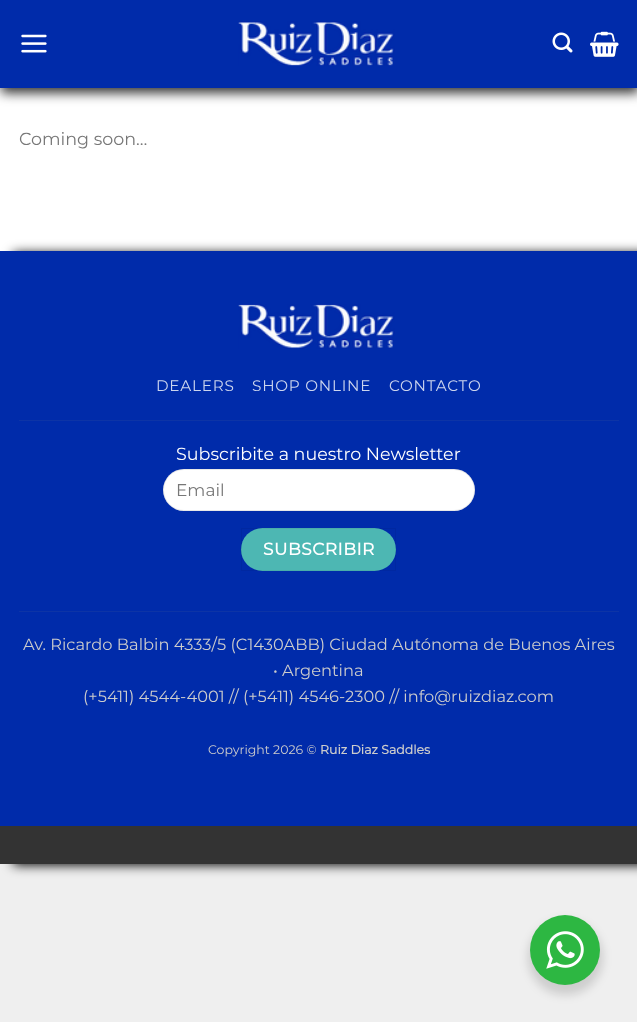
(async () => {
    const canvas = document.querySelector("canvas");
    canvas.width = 637;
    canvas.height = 1022;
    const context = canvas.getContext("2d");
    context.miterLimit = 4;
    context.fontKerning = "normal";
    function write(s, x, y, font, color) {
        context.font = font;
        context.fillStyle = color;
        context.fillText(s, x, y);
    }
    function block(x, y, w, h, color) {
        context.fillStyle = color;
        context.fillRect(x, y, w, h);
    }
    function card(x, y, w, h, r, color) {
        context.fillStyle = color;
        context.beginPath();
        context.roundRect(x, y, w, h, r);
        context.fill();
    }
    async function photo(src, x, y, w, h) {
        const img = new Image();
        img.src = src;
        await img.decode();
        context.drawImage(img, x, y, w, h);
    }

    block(0, 0, 637, 1022, "rgb(239, 239, 239)");
    block(0, 88, 637, 163, "rgb(255, 255, 255)");
    block(0, 0, 637, 88, "rgb(0, 43, 170)");
    context.save();
    context.beginPath();
    context.moveTo(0, 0);
    context.lineTo(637, 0);
    context.lineTo(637, 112);
    context.lineTo(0, 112);
    context.closePath();
    context.moveTo(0, 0);
    context.lineTo(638, 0);
    context.lineTo(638, 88);
    context.lineTo(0, 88);
    context.closePath();
    context.clip("evenodd");
    context.fillStyle = "rgb(51, 51, 51)";
    context.filter = "blur(6px)";
    context.beginPath();
    context.rect(1, 5, 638, 88);
    context.fill();
    context.filter = "none";
    context.restore();
    await photo("media/1.png", 21, 34, 26, 19);
    await photo("media/2.png", 238, 21, 157, 45);
    await photo("media/3.png", 552, 32, 21, 21);
    await photo("media/4.png", 590, 31, 29, 26);
    write("Coming soon…", 19, 145, "100 17.5px Montserrat", "rgb(119, 119, 119)");
    context.fillStyle = "rgb(0, 0, 0)";
    context.filter = "blur(6px)";
    context.beginPath();
    context.rect(13, 253, 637, 612);
    context.fill();
    context.filter = "none";
    block(0, 251, 637, 575, "rgb(0, 43, 170)");
    block(0, 826, 637, 38, "rgb(51, 51, 51)");
    await photo("media/5.png", 238, 304, 157, 45);
    context.letterSpacing = "0.75px";
    write("DEALERS", 156, 391, "100 15.25px Montserrat", "rgb(204, 213, 238)");
    write("SHOP ONLINE", 252, 391, "100 15.25px Montserrat", "rgb(204, 213, 238)");
    write("CONTACTO", 389, 391, "100 15.25px Montserrat", "rgb(204, 213, 238)");
    block(19, 420, 600, 1, "rgb(13, 52, 166)");
    context.letterSpacing = "0px";
    write("Subscribite a nuestro Newsletter", 176, 460, "100 17.5px Montserrat", "rgb(255, 255, 255)");
    card(163, 469, 312, 42, 21, "rgb(255, 255, 255)");
    context.beginPath();
    context.roundRect(163.5, 469.5, 311, 41, 20.5);
    context.strokeStyle = "rgba(0, 0, 0, 0.09)";
    context.stroke();
    write("Email", 176, 496, "100 17px Montserrat", "rgb(119, 119, 119)");
    card(241, 528, 155, 43, 21.5, "rgb(77, 183, 179)");
    context.strokeStyle = "rgba(0, 0, 0, 0.05)";
    context.strokeRect(241.5, 528.5, 154, 42);
    context.letterSpacing = "0.5px";
    write("SUBSCRIBIR", 263, 555, "bold 17px Montserrat", "rgb(255, 255, 255)");
    block(19, 611, 600, 1, "rgb(13, 52, 166)");
    context.letterSpacing = "0px";
    write("Av. Ricardo Balbin 4333/5 (C1430ABB) Ciudad Autónoma de Buenos Aires", 23, 650, "100 16.25px Montserrat", "rgb(204, 204, 204)");
    write("• Argentina", 273, 676, "100 16.25px Montserrat", "rgb(204, 204, 204)");
    write("(+5411) 4544-4001 // (+5411) 4546-2300 // info@ruizdiaz.com", 83, 702, "100 16.25px Montserrat", "rgb(204, 204, 204)");
    write("Copyright 2026 ©", 208, 754, "100 12.5px Montserrat", "rgb(204, 204, 204)");
    write("Ruiz Diaz Saddles", 320, 754, "bold 12.5px Montserrat", "rgb(204, 204, 204)");
    context.fillStyle = "rgba(0, 0, 0, 0.14)";
    context.filter = "blur(5px)";
    context.beginPath();
    context.roundRect(528, 920, 75, 75, 37.5);
    context.fill();
    context.filter = "none";
    context.fillStyle = "rgb(45, 183, 66)";
    context.beginPath();
    context.arc(565, 950, 35, 0, Math.PI * 2);
    context.fill();
    await photo("media/6.png", 546, 931, 38, 38);
})();
